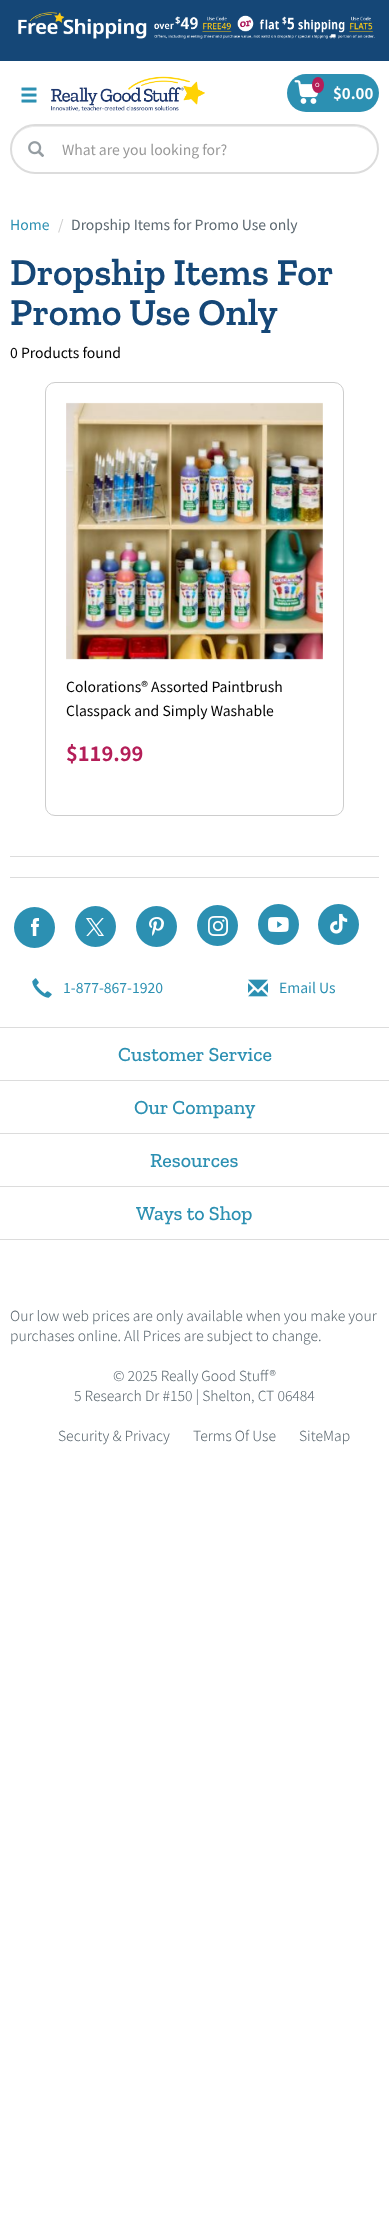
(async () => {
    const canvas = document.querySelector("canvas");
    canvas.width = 389;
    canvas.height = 2227;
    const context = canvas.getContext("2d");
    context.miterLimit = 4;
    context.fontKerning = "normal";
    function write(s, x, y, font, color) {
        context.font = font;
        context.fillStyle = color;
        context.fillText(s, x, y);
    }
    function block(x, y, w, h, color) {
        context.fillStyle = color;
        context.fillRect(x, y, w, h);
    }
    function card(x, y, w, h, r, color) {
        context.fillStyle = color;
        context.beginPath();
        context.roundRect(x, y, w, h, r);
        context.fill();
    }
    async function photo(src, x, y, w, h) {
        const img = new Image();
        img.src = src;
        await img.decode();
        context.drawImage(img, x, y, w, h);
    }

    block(0, 0, 389, 2227, "rgb(255, 255, 255)");
    block(0, 0, 389, 61, "rgb(21, 71, 119)");
    await photo("media/1.png", 18, 12, 357, 27);
    await photo("media/2.png", 21, 87, 16, 16);
    await photo("media/3.png", 51, 76, 154, 36);
    card(287, 74, 92, 38, 19, "rgb(44, 144, 178)");
    await photo("media/4.png", 294, 80, 25, 24);
    context.fillStyle = "rgb(180, 30, 88)";
    context.beginPath();
    context.ellipse(318, 85, 6, 8, 0, 0, Math.PI * 2);
    context.fill();
    write("0", 315, 87, "8px Zilla Slab", "rgb(255, 255, 255)");
    write("$0.00", 333, 99, "bold 15px Noto Sans SC", "rgb(255, 255, 255)");
    context.fillStyle = "rgb(236, 236, 236)";
    context.beginPath();
    context.moveTo(35, 127);
    context.lineTo(354, 127);
    context.bezierCurveTo(367, 127, 377, 137, 377, 149);
    context.bezierCurveTo(377, 137, 367, 126, 354, 126);
    context.lineTo(35, 126);
    context.bezierCurveTo(22, 126, 12, 137, 12, 149);
    context.bezierCurveTo(12, 137, 22, 127, 35, 127);
    context.closePath();
    context.fill();
    context.beginPath();
    context.roundRect(11, 125, 367, 48, 24);
    context.strokeStyle = "rgb(220, 220, 220)";
    context.lineWidth = 2;
    context.stroke();
    await photo("media/5.png", 28, 141, 16, 16);
    write("What are you looking for?", 62, 155, "14px Noto Sans SC", "rgb(153, 153, 153)");
    write("Home", 10, 230, "14px Noto Sans SC", "rgb(44, 144, 178)");
    write("/", 58, 230, "14px Noto Sans SC", "rgb(204, 204, 204)");
    write("Dropship Items for Promo Use only", 71, 230, "14px Noto Sans SC", "rgb(92, 104, 112)");
    write("Dropship Items For", 10, 285, "600 38px Zilla Slab", "rgb(21, 71, 119)");
    write("Promo Use Only", 10, 325, "600 38px Zilla Slab", "rgb(21, 71, 119)");
    write("0 Products found", 10, 358, "14px Noto Sans SC", "rgb(0, 0, 0)");
    context.beginPath();
    context.roundRect(45.5, 382.5, 298, 433, 9.5);
    context.strokeStyle = "rgb(205, 205, 205)";
    context.lineWidth = 1;
    context.stroke();
    await photo("media/6.png", 66, 402, 257, 258);
    write("Colorations® Assorted Paintbrush", 66, 692, "14px Noto Sans SC", "rgb(0, 0, 0)");
    write("Classpack and Simply Washable", 66, 716, "14px Noto Sans SC", "rgb(0, 0, 0)");
    write("$119.99", 66, 761, "bold 20px Noto Sans SC", "rgb(180, 30, 88)");
    block(10, 856, 369, 1, "rgb(220, 220, 220)");
    block(10, 877, 369, 1, "rgb(220, 220, 220)");
    block(0, 1027, 389, 1, "rgb(220, 220, 220)");
    await photo("media/7.png", 14, 907, 41, 41);
    await photo("media/8.png", 75, 906, 41, 41);
    await photo("media/9.png", 136, 906, 41, 41);
    await photo("media/10.png", 197, 905, 41, 41);
    await photo("media/11.png", 258, 904, 41, 41);
    await photo("media/12.png", 318, 904, 41, 41);
    await photo("media/13.png", 32, 978, 20, 20);
    write("1-877-867-1920", 63, 993, "14px Noto Sans SC", "rgb(44, 144, 178)");
    await photo("media/14.png", 248, 979, 20, 18);
    write("Email Us", 279, 993, "14px Noto Sans SC", "rgb(44, 144, 178)");
    block(0, 1080, 389, 1, "rgb(220, 220, 220)");
    write("Customer Service", 118, 1061, "500 20px Zilla Slab", "rgb(44, 144, 178)");
    block(0, 1133, 389, 1, "rgb(220, 220, 220)");
    write("Our Company", 134, 1114, "500 20px Zilla Slab", "rgb(44, 144, 178)");
    block(0, 1186, 389, 1, "rgb(220, 220, 220)");
    write("Resources", 150, 1167, "500 20px Zilla Slab", "rgb(44, 144, 178)");
    block(0, 1239, 389, 1, "rgb(220, 220, 220)");
    write("Ways to Shop", 136, 1220, "500 20px Zilla Slab", "rgb(44, 144, 178)");
    write("Our low web prices are only available when you make your", 10, 1321, "300 14px Noto Sans SC", "rgb(92, 104, 112)");
    write("purchases online. All Prices are subject to change.", 10, 1341, "300 14px Noto Sans SC", "rgb(92, 104, 112)");
    write("© 2025 Really Good Stuff®", 113, 1381, "300 14px Noto Sans SC", "rgb(92, 104, 112)");
    write("5 Research Dr #150 | Shelton, CT 06484", 74, 1401, "300 14px Noto Sans SC", "rgb(92, 104, 112)");
    write("Security & Privacy", 58, 1441, "300 14px Noto Sans SC", "rgb(92, 104, 112)");
    write("Terms Of Use", 193, 1441, "300 14px Noto Sans SC", "rgb(92, 104, 112)");
    write("SiteMap", 299, 1441, "300 14px Noto Sans SC", "rgb(92, 104, 112)");
})();
